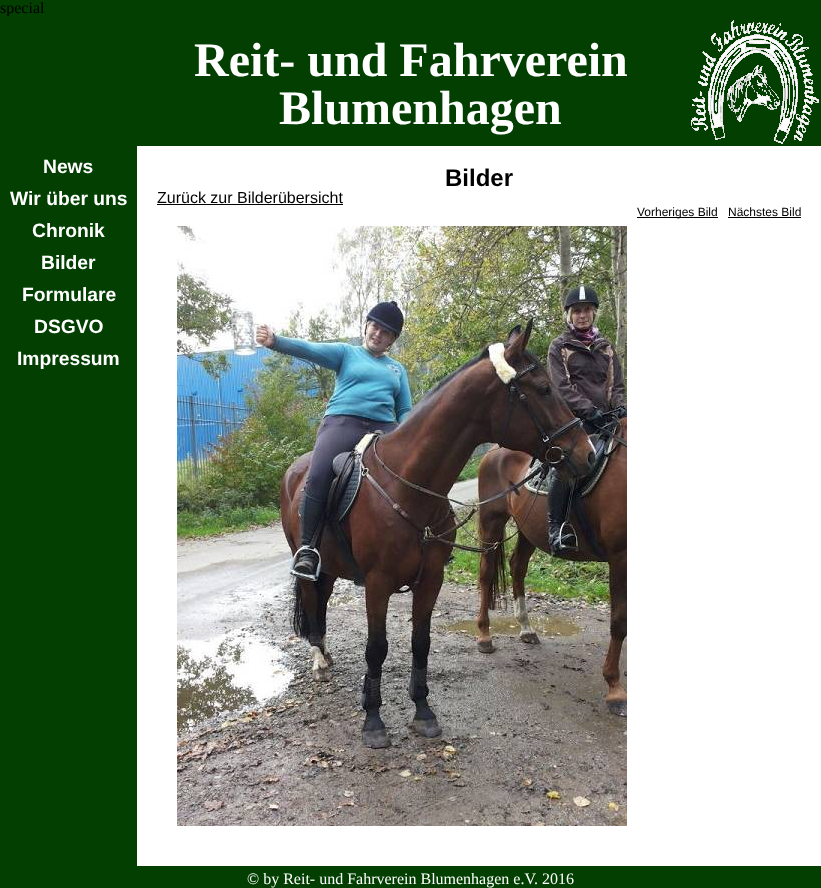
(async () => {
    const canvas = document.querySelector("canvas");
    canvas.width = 821;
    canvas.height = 888;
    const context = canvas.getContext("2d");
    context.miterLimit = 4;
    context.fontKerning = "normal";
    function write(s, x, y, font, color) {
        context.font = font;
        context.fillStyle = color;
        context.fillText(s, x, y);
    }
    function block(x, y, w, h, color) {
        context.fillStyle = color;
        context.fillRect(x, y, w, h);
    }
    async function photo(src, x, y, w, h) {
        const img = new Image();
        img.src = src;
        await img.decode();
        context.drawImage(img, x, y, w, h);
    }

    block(0, 0, 821, 888, "rgb(2, 63, 0)");
    write("special", 0, 13, "16px Liberation Serif", "rgb(0, 0, 0)");
    block(6, 16, 4, 1, "rgb(2, 63, 0)");
    await photo("media/1.png", 691, 20, 128, 124);
    write("Reit- und Fahrverein", 194, 76, "bold 48px Liberation Serif", "rgb(255, 255, 255)");
    write("Blumenhagen", 279, 124, "bold 48px Liberation Serif", "rgb(255, 255, 255)");
    write("News", 43, 173, "bold 19.25px Liberation Sans", "rgb(255, 255, 255)");
    write("Wir über uns", 10, 205, "bold 19.25px Liberation Sans", "rgb(255, 255, 255)");
    write("Chronik", 32, 237, "bold 19.25px Liberation Sans", "rgb(255, 255, 255)");
    write("Bilder", 41, 269, "bold 19.25px Liberation Sans", "rgb(255, 255, 255)");
    write("Formulare", 22, 301, "bold 19.25px Liberation Sans", "rgb(255, 255, 255)");
    write("DSGVO", 34, 333, "bold 19.25px Liberation Sans", "rgb(255, 255, 255)");
    write("Impressum", 17, 365, "bold 19.25px Liberation Sans", "rgb(255, 255, 255)");
    block(137, 146, 684, 720, "rgb(255, 255, 255)");
    write("Bilder", 445, 186, "bold 24px Liberation Sans", "rgb(0, 0, 0)");
    write("Zurück zur Bilderübersicht", 157, 203, "16px Liberation Sans", "rgb(0, 0, 0)");
    block(157, 204, 186, 1, "rgb(0, 0, 0)");
    block(637, 217, 81, 1, "rgb(0, 0, 0)");
    write("Vorheriges Bild", 637, 216, "12px Liberation Sans", "rgb(0, 0, 0)");
    write("Nächstes Bild", 728, 216, "12px Liberation Sans", "rgb(0, 0, 0)");
    block(728, 217, 73, 1, "rgb(0, 0, 0)");
    await photo("media/2.png", 177, 226, 450, 600);
    write("© by Reit- und Fahrverein Blumenhagen e.V. 2016", 247, 884, "16px Liberation Serif", "rgb(255, 255, 255)");
})();
